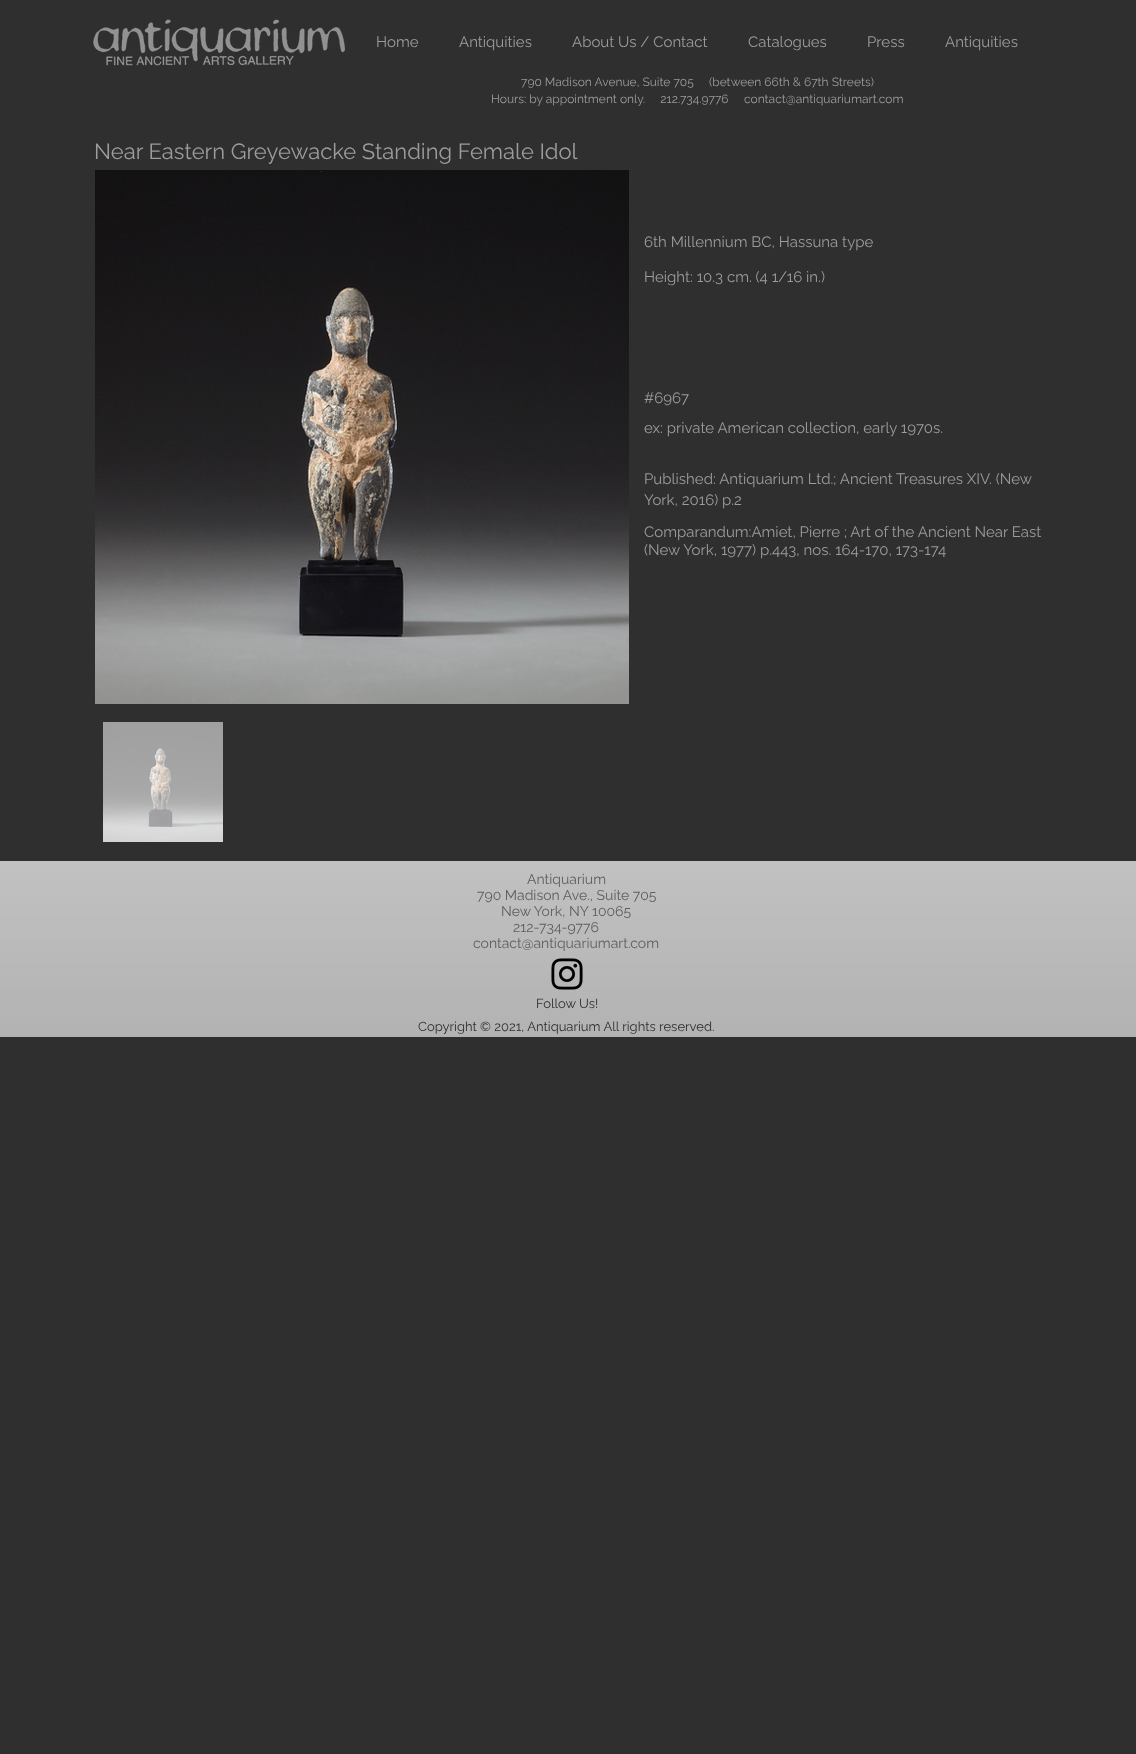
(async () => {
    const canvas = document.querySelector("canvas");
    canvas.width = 1136;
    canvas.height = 1754;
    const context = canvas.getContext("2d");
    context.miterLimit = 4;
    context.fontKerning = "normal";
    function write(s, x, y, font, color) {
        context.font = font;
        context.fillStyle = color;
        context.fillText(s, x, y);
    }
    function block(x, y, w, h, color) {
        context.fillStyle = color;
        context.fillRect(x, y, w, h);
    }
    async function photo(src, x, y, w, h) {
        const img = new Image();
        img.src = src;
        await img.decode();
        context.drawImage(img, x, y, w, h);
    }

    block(0, 0, 1136, 1754, "rgb(47, 47, 47)");
    await photo("media/1.png", 93, 19, 253, 47);
    write("Home", 376, 47, "15px Raleway", "rgb(156, 156, 156)");
    write("Antiquities", 459, 47, "15px Raleway", "rgb(156, 156, 156)");
    write("About Us / Contact", 572, 47, "15px Raleway", "rgb(156, 156, 156)");
    write("Catalogues", 748, 47, "15px Raleway", "rgb(156, 156, 156)");
    write("Press", 867, 47, "15px Raleway", "rgb(156, 156, 156)");
    write("Antiquities", 945, 47, "15px Raleway", "rgb(156, 156, 156)");
    write("790 Madison Avenue, Suite 705     (between 66th & 67th Streets)", 521, 86, "12px Raleway", "rgb(156, 156, 156)");
    write("Hours: by appointment only.     212.734.9776", 491, 103, "12px Raleway", "rgb(156, 156, 156)");
    write("contact@antiquariumart.com", 744, 103, "12px Raleway", "rgb(156, 156, 156)");
    write("Near Eastern Greyewacke Standing Female Idol", 94, 159, "22px Raleway", "rgb(156, 156, 156)");
    await photo("media/2.png", 95, 170, 534, 534);
    await photo("media/3.png", 103, 722, 120, 120);
    write("6th Millennium BC, Hassuna type", 644, 247, "15px Raleway", "rgb(156, 156, 156)");
    write("Height: 10.3 cm. (4 1/16 in.)", 644, 282, "15px Raleway", "rgb(156, 156, 156)");
    write("#6967", 644, 403, "15px Raleway", "rgb(156, 156, 156)");
    write("ex: private American collection, early 1970s.", 644, 433, "15px Raleway", "rgb(156, 156, 156)");
    write("Published: Antiquarium Ltd.; Ancient Treasures XIV. (New", 644, 484, "15px Raleway", "rgb(156, 156, 156)");
    write("York, 2016) p.2", 644, 505, "15px Raleway", "rgb(156, 156, 156)");
    write("Comparandum:Amiet, Pierre ; Art of the Ancient Near East", 644, 537, "15px Raleway", "rgb(156, 156, 156)");
    write("(New York, 1977) p.443, nos. 164-170, 173-174", 644, 555, "15px Raleway", "rgb(156, 156, 156)");
    block(0, 861, 1136, 176, "rgb(172, 172, 172)");
    await photo("media/4.png", 0, 861, 1136, 176);
    write("Antiquarium", 527, 884, "14px Raleway", "rgb(94, 94, 94)");
    write("790 Madison Ave., Suite 705", 477, 900, "14px Raleway", "rgb(94, 94, 94)");
    write("New York, NY 10065", 501, 916, "14px Raleway", "rgb(94, 94, 94)");
    write("212-734-9776", 513, 932, "14px Raleway", "rgb(94, 94, 94)");
    write("contact@antiquariumart.com", 473, 948, "14px Raleway", "rgb(94, 94, 94)");
    await photo("media/5.png", 551, 958, 32, 32);
    write("Follow Us!", 536, 1008, "13px Raleway", "rgb(47, 47, 47)");
    write("Copyright © 2021, Antiquarium All rights reserved.", 418, 1031, "13px Raleway", "rgb(47, 47, 47)");
})();
